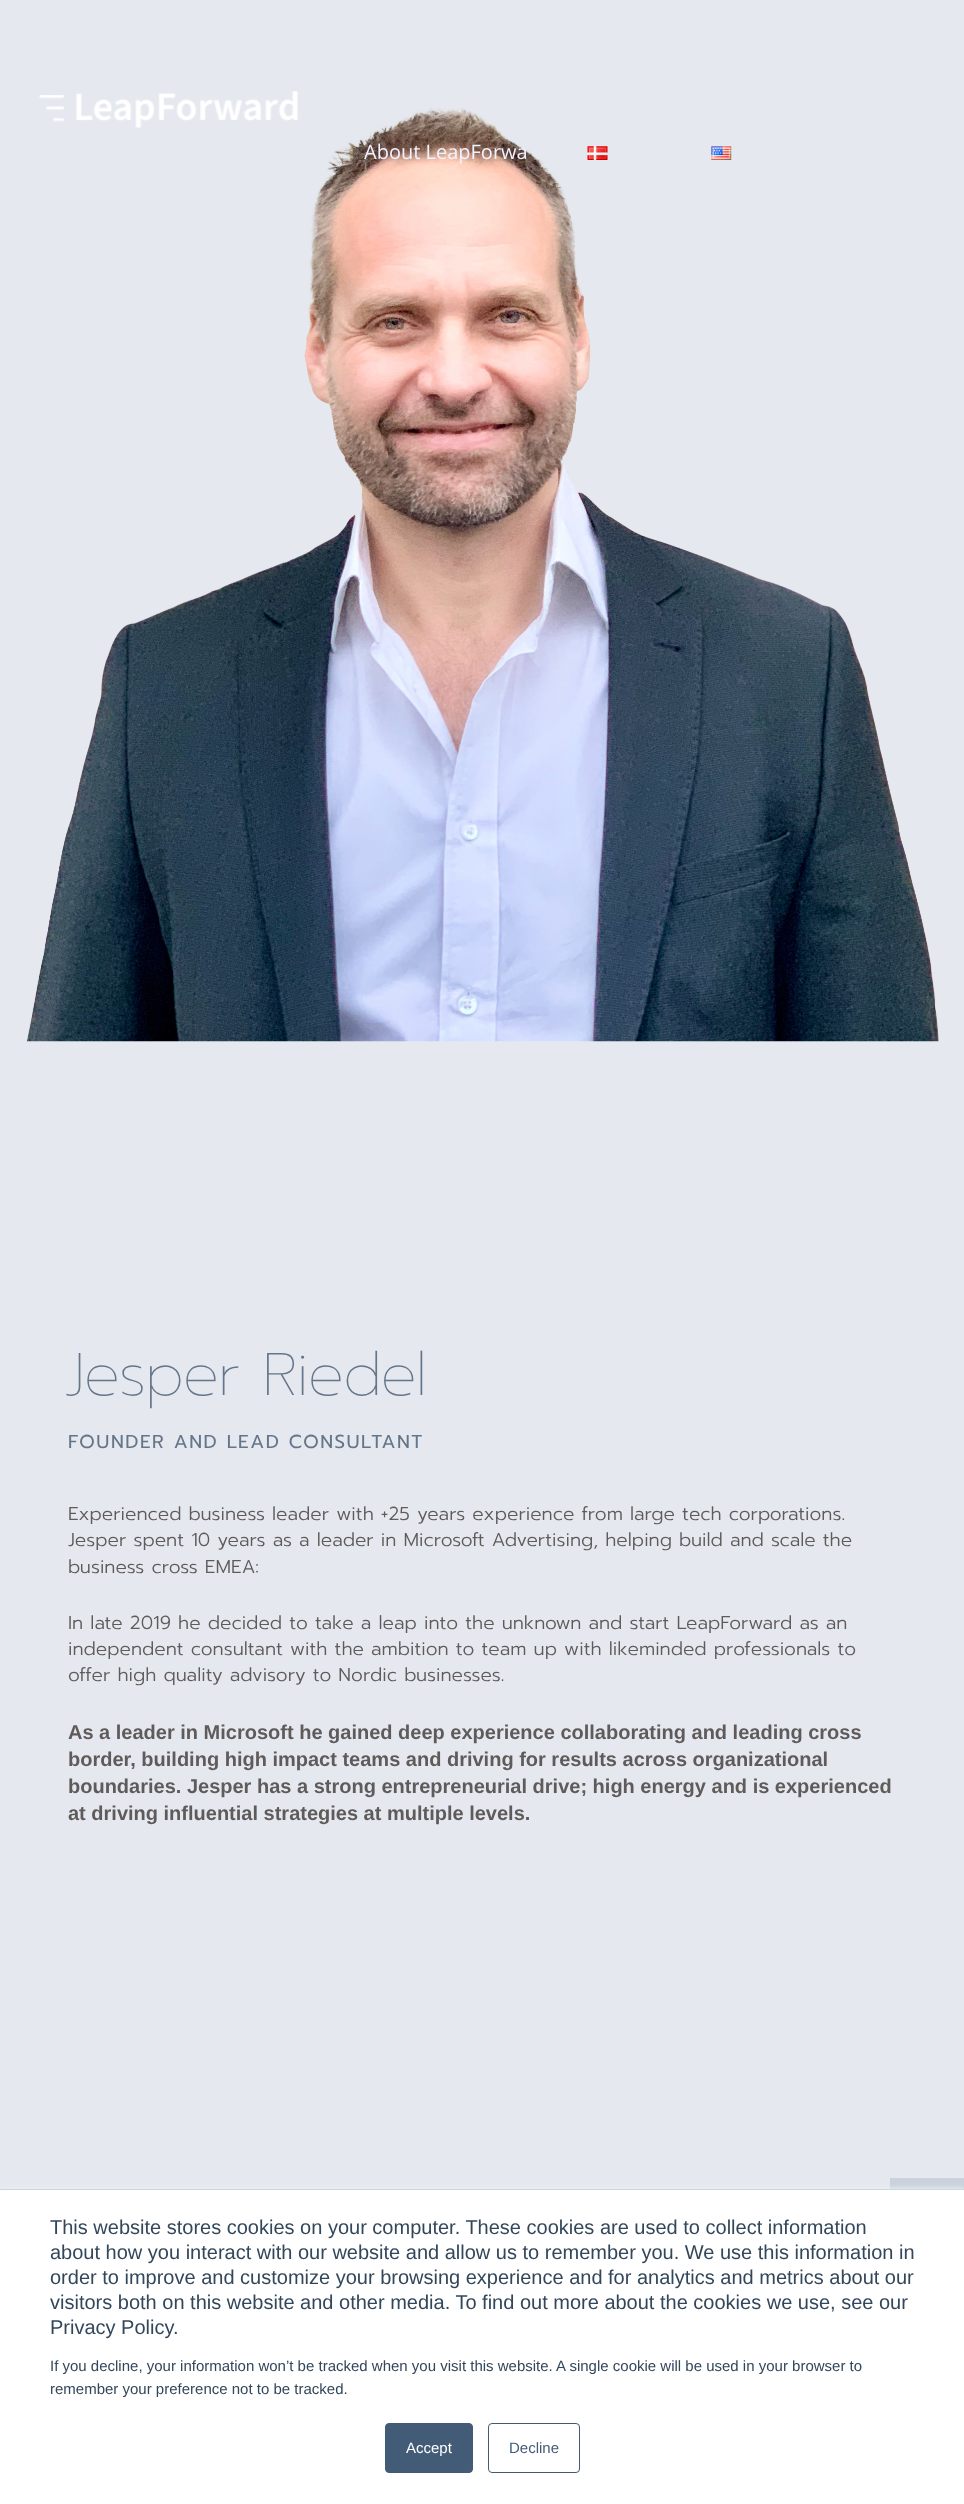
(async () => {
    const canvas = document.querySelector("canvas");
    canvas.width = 964;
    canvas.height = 2504;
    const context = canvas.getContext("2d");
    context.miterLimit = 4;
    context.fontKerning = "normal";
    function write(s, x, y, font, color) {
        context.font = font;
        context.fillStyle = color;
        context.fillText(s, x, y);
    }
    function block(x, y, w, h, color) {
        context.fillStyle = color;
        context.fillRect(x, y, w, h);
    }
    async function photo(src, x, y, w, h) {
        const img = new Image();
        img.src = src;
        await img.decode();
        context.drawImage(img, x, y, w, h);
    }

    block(0, 0, 964, 2504, "rgb(229, 233, 239)");
    await photo("media/4.png", 26, 108, 913, 934);
    await photo("media/1.png", 39, 91, 259, 37);
    write("About LeapForwa", 364, 159, "20px Open Sans", "rgb(239, 242, 255)");
    await photo("media/2.png", 587, 146, 21, 14);
    await photo("media/3.png", 711, 146, 21, 14);
    context.letterSpacing = "-1.25px";
    write("Jesper Riedel", 64, 1395, "100 60px Prompt", "rgb(101, 118, 139)");
    context.letterSpacing = "1.5px";
    write("FOUNDER AND LEAD CONSULTANT", 68, 1448, "18.75px Prompt", "rgb(101, 118, 139)");
    context.letterSpacing = "0px";
    write("Experienced business leader with +25 years experience from large tech corporations.", 68, 1520, "300 18.75px Prompt", "rgb(95, 91, 91)");
    write("Jesper spent 10 years as a leader in Microsoft Advertising, helping build and scale the", 68, 1546, "300 18.75px Prompt", "rgb(95, 91, 91)");
    write("business cross EMEA:", 68, 1573, "300 18.75px Prompt", "rgb(95, 91, 91)");
    write("In late 2019 he decided to take a leap into the unknown and start LeapForward as an", 68, 1629, "300 18.75px Prompt", "rgb(95, 91, 91)");
    write("independent consultant with the ambition to team up with likeminded professionals to", 68, 1655, "300 18.75px Prompt", "rgb(95, 91, 91)");
    write("offer high quality advisory to Nordic businesses.", 68, 1681, "300 18.75px Prompt", "rgb(95, 91, 91)");
    write("As a leader in Microsoft he gained deep experience collaborating and leading cross", 68, 1739, "bold 20px Liberation Sans", "rgb(95, 91, 91)");
    write("border, building high impact teams and driving for results across organizational", 68, 1766, "bold 20px Liberation Sans", "rgb(95, 91, 91)");
    write("boundaries. Jesper has a strong entrepreneurial drive; high energy and is experienced", 68, 1793, "bold 20px Liberation Sans", "rgb(95, 91, 91)");
    write("at driving influential strategies at multiple levels.", 68, 1820, "bold 20px Liberation Sans", "rgb(95, 91, 91)");
    block(890, 2178, 74, 11, "rgb(203, 210, 219)");
    context.fillStyle = "rgb(234, 240, 246)";
    context.filter = "blur(2px)";
    context.beginPath();
    context.rect(0, 2188, 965, 316);
    context.fill();
    context.filter = "none";
    block(0, 2190, 964, 314, "rgb(255, 255, 255)");
    block(0, 2189, 964, 1, "rgb(203, 214, 226)");
    write("This website stores cookies on your computer. These cookies are used to collect information", 50, 2234, "20px Liberation Sans", "rgb(51, 71, 91)");
    write("about how you interact with our website and allow us to remember you. We use this information in", 50, 2259, "20px Liberation Sans", "rgb(51, 71, 91)");
    write("order to improve and customize your browsing experience and for analytics and metrics about our", 50, 2284, "20px Liberation Sans", "rgb(51, 71, 91)");
    write("visitors both on this website and other media. To find out more about the cookies we use, see our", 50, 2309, "20px Liberation Sans", "rgb(51, 71, 91)");
    write("Privacy Policy.", 50, 2334, "20px Liberation Sans", "rgb(51, 71, 91)");
    write("If you decline, your information won’t be tracked when you visit this website. A single cookie will be used in your browser to", 50, 2371, "15px Liberation Sans", "rgb(51, 71, 91)");
    write("remember your preference not to be tracked.", 50, 2394, "15px Liberation Sans", "rgb(51, 71, 91)");
    context.fillStyle = "rgb(66, 91, 118)";
    context.beginPath();
    context.roundRect(385.5, 2423.5, 87, 49, 3.5);
    context.fill();
    context.strokeStyle = "rgb(66, 91, 118)";
    context.stroke();
    write("Accept", 406, 2453, "15px Liberation Sans", "rgb(255, 255, 255)");
    context.beginPath();
    context.roundRect(488.5, 2423.5, 91, 49, 3.5);
    context.stroke();
    write("Decline", 509, 2453, "15px Liberation Sans", "rgb(66, 91, 118)");
})();
